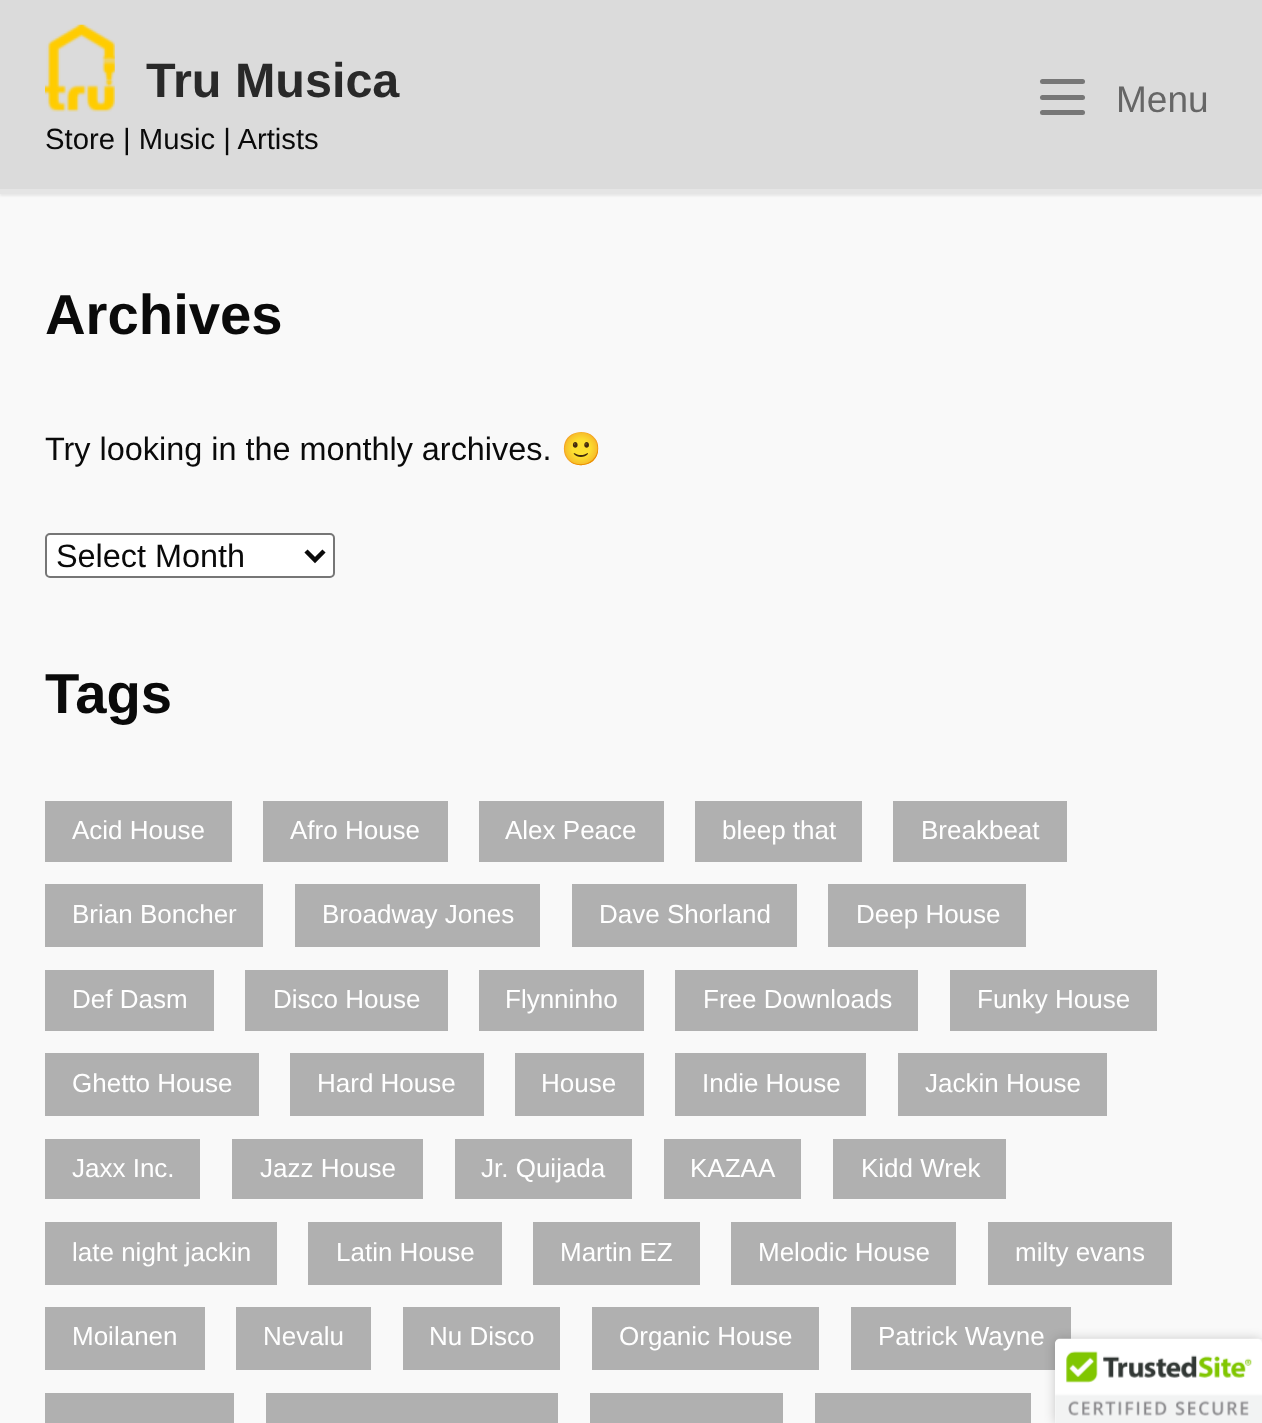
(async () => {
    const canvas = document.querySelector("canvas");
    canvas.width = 1262;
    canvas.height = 1423;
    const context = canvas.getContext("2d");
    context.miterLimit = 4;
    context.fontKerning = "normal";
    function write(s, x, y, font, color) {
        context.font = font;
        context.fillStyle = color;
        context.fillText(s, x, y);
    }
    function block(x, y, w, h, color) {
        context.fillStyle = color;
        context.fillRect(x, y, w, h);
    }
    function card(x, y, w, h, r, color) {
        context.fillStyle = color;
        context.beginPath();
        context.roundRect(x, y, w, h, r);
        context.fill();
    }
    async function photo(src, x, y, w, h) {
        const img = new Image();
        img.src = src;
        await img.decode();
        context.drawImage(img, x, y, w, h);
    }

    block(0, 0, 1262, 1423, "rgb(249, 249, 249)");
    context.fillStyle = "rgba(0, 0, 0, 0.07)";
    context.filter = "blur(1px)";
    context.beginPath();
    context.rect(0, 2, 1262, 194);
    context.fill();
    context.filter = "none";
    block(0, 0, 1262, 189, "rgb(219, 219, 219)");
    block(0, 189, 1262, 5, "rgb(229, 229, 229)");
    await photo("media/1.png", 45, 24, 70, 88);
    write("Tru Musica", 146, 97, "bold 48.5px Liberation Sans", "rgb(41, 41, 41)");
    write("Store | Music | Artists", 45, 149, "29.25px Liberation Sans", "rgb(10, 10, 10)");
    card(1040, 79, 45, 5, 2.5, "rgb(119, 119, 119)");
    card(1040, 95, 45, 5, 2.5, "rgb(119, 119, 119)");
    card(1040, 110, 45, 5, 2.5, "rgb(119, 119, 119)");
    write("Menu", 1116, 112, "37px Liberation Sans", "rgb(102, 102, 102)");
    write("Archives", 45, 334, "bold 56.25px Liberation Sans", "rgb(10, 10, 10)");
    write("Try looking in the monthly archives.", 45, 460, "32.4px Liberation Sans", "rgb(10, 10, 10)");
    write("🙂", 561, 460, "32.4px Noto Color Emoji", "rgb(10, 10, 10)");
    context.fillStyle = "rgb(255, 255, 255)";
    context.beginPath();
    context.roundRect(46, 534, 288, 43, 4);
    context.fill();
    context.strokeStyle = "rgb(118, 118, 118)";
    context.lineWidth = 2;
    context.stroke();
    context.beginPath();
    context.moveTo(306, 551);
    context.lineTo(315, 560);
    context.lineTo(324, 551);
    context.strokeStyle = "rgb(10, 10, 10)";
    context.lineWidth = 4.5;
    context.stroke();
    write("Select Month", 56, 567, "32.4px Liberation Sans", "rgb(10, 10, 10)");
    write("Tags", 45, 713, "bold 56.25px Liberation Sans", "rgb(10, 10, 10)");
    block(45, 801, 187, 61, "rgb(176, 176, 176)");
    write("Acid House", 72, 839, "26px Liberation Sans", "rgb(255, 255, 255)");
    block(263, 801, 185, 61, "rgb(176, 176, 176)");
    write("Afro House", 290, 839, "26px Liberation Sans", "rgb(255, 255, 255)");
    block(479, 801, 185, 61, "rgb(176, 176, 176)");
    write("Alex Peace", 505, 839, "26px Liberation Sans", "rgb(255, 255, 255)");
    block(695, 801, 167, 61, "rgb(176, 176, 176)");
    write("bleep that", 722, 839, "26px Liberation Sans", "rgb(255, 255, 255)");
    block(893, 801, 174, 61, "rgb(176, 176, 176)");
    write("Breakbeat", 921, 839, "26px Liberation Sans", "rgb(255, 255, 255)");
    block(45, 884, 218, 63, "rgb(176, 176, 176)");
    write("Brian Boncher", 72, 923, "26px Liberation Sans", "rgb(255, 255, 255)");
    block(295, 884, 245, 63, "rgb(176, 176, 176)");
    write("Broadway Jones", 322, 923, "26px Liberation Sans", "rgb(255, 255, 255)");
    block(572, 884, 225, 63, "rgb(176, 176, 176)");
    write("Dave Shorland", 599, 923, "26px Liberation Sans", "rgb(255, 255, 255)");
    block(828, 884, 198, 63, "rgb(176, 176, 176)");
    write("Deep House", 856, 923, "26px Liberation Sans", "rgb(255, 255, 255)");
    block(45, 970, 169, 61, "rgb(176, 176, 176)");
    write("Def Dasm", 72, 1008, "26px Liberation Sans", "rgb(255, 255, 255)");
    block(245, 970, 203, 61, "rgb(176, 176, 176)");
    write("Disco House", 273, 1008, "26px Liberation Sans", "rgb(255, 255, 255)");
    block(479, 970, 165, 61, "rgb(176, 176, 176)");
    write("Flynninho", 505, 1008, "26px Liberation Sans", "rgb(255, 255, 255)");
    block(675, 970, 243, 61, "rgb(176, 176, 176)");
    write("Free Downloads", 703, 1008, "26px Liberation Sans", "rgb(255, 255, 255)");
    block(950, 970, 207, 61, "rgb(176, 176, 176)");
    write("Funky House", 977, 1008, "26px Liberation Sans", "rgb(255, 255, 255)");
    block(45, 1053, 214, 63, "rgb(176, 176, 176)");
    write("Ghetto House", 72, 1092, "26px Liberation Sans", "rgb(255, 255, 255)");
    block(290, 1053, 194, 63, "rgb(176, 176, 176)");
    write("Hard House", 317, 1092, "26px Liberation Sans", "rgb(255, 255, 255)");
    block(515, 1053, 129, 63, "rgb(176, 176, 176)");
    write("House", 541, 1092, "26px Liberation Sans", "rgb(255, 255, 255)");
    block(675, 1053, 191, 63, "rgb(176, 176, 176)");
    write("Indie House", 702, 1092, "26px Liberation Sans", "rgb(255, 255, 255)");
    block(898, 1053, 209, 63, "rgb(176, 176, 176)");
    write("Jackin House", 925, 1092, "26px Liberation Sans", "rgb(255, 255, 255)");
    block(45, 1139, 155, 60, "rgb(176, 176, 176)");
    write("Jaxx Inc.", 72, 1177, "26px Liberation Sans", "rgb(255, 255, 255)");
    block(232, 1139, 191, 60, "rgb(176, 176, 176)");
    write("Jazz House", 260, 1177, "26px Liberation Sans", "rgb(255, 255, 255)");
    block(455, 1139, 177, 60, "rgb(176, 176, 176)");
    write("Jr. Quijada", 481, 1177, "26px Liberation Sans", "rgb(255, 255, 255)");
    block(664, 1139, 137, 60, "rgb(176, 176, 176)");
    write("KAZAA", 690, 1177, "26px Liberation Sans", "rgb(255, 255, 255)");
    block(833, 1139, 173, 60, "rgb(176, 176, 176)");
    write("Kidd Wrek", 861, 1177, "26px Liberation Sans", "rgb(255, 255, 255)");
    block(45, 1222, 232, 63, "rgb(176, 176, 176)");
    write("late night jackin", 72, 1261, "26px Liberation Sans", "rgb(255, 255, 255)");
    block(308, 1222, 194, 63, "rgb(176, 176, 176)");
    write("Latin House", 336, 1261, "26px Liberation Sans", "rgb(255, 255, 255)");
    block(533, 1222, 167, 63, "rgb(176, 176, 176)");
    write("Martin EZ", 560, 1261, "26px Liberation Sans", "rgb(255, 255, 255)");
    block(731, 1222, 225, 63, "rgb(176, 176, 176)");
    write("Melodic House", 758, 1261, "26px Liberation Sans", "rgb(255, 255, 255)");
    block(988, 1222, 184, 63, "rgb(176, 176, 176)");
    write("milty evans", 1015, 1261, "26px Liberation Sans", "rgb(255, 255, 255)");
    block(45, 1307, 160, 63, "rgb(176, 176, 176)");
    write("Moilanen", 72, 1345, "26px Liberation Sans", "rgb(255, 255, 255)");
    block(236, 1307, 135, 63, "rgb(176, 176, 176)");
    write("Nevalu", 263, 1345, "26px Liberation Sans", "rgb(255, 255, 255)");
    block(403, 1307, 157, 63, "rgb(176, 176, 176)");
    write("Nu Disco", 429, 1345, "26px Liberation Sans", "rgb(255, 255, 255)");
    block(592, 1307, 227, 63, "rgb(176, 176, 176)");
    write("Organic House", 619, 1345, "26px Liberation Sans", "rgb(255, 255, 255)");
    block(851, 1307, 220, 63, "rgb(176, 176, 176)");
    write("Patrick Wayne", 878, 1345, "26px Liberation Sans", "rgb(255, 255, 255)");
    block(45, 1393, 189, 30, "rgb(176, 176, 176)");
    block(266, 1393, 292, 30, "rgb(176, 176, 176)");
    block(590, 1393, 193, 30, "rgb(176, 176, 176)");
    block(815, 1393, 216, 30, "rgb(176, 176, 176)");
    context.fillStyle = "rgba(0, 0, 0, 0.2)";
    context.filter = "blur(5.5px)";
    context.beginPath();
    context.roundRect(1055, 1339, 207, 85, 5);
    context.fill();
    context.filter = "none";
    context.fillStyle = "rgb(255, 255, 255)";
    context.beginPath();
    context.moveTo(1060, 1339);
    context.lineTo(1262, 1339);
    context.lineTo(1262, 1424);
    context.lineTo(1055, 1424);
    context.lineTo(1055, 1344);
    context.bezierCurveTo(1055, 1341, 1057, 1339, 1060, 1339);
    context.closePath();
    context.fill();
    await photo("media/2.png", 1055, 1338, 207, 85);
})();
